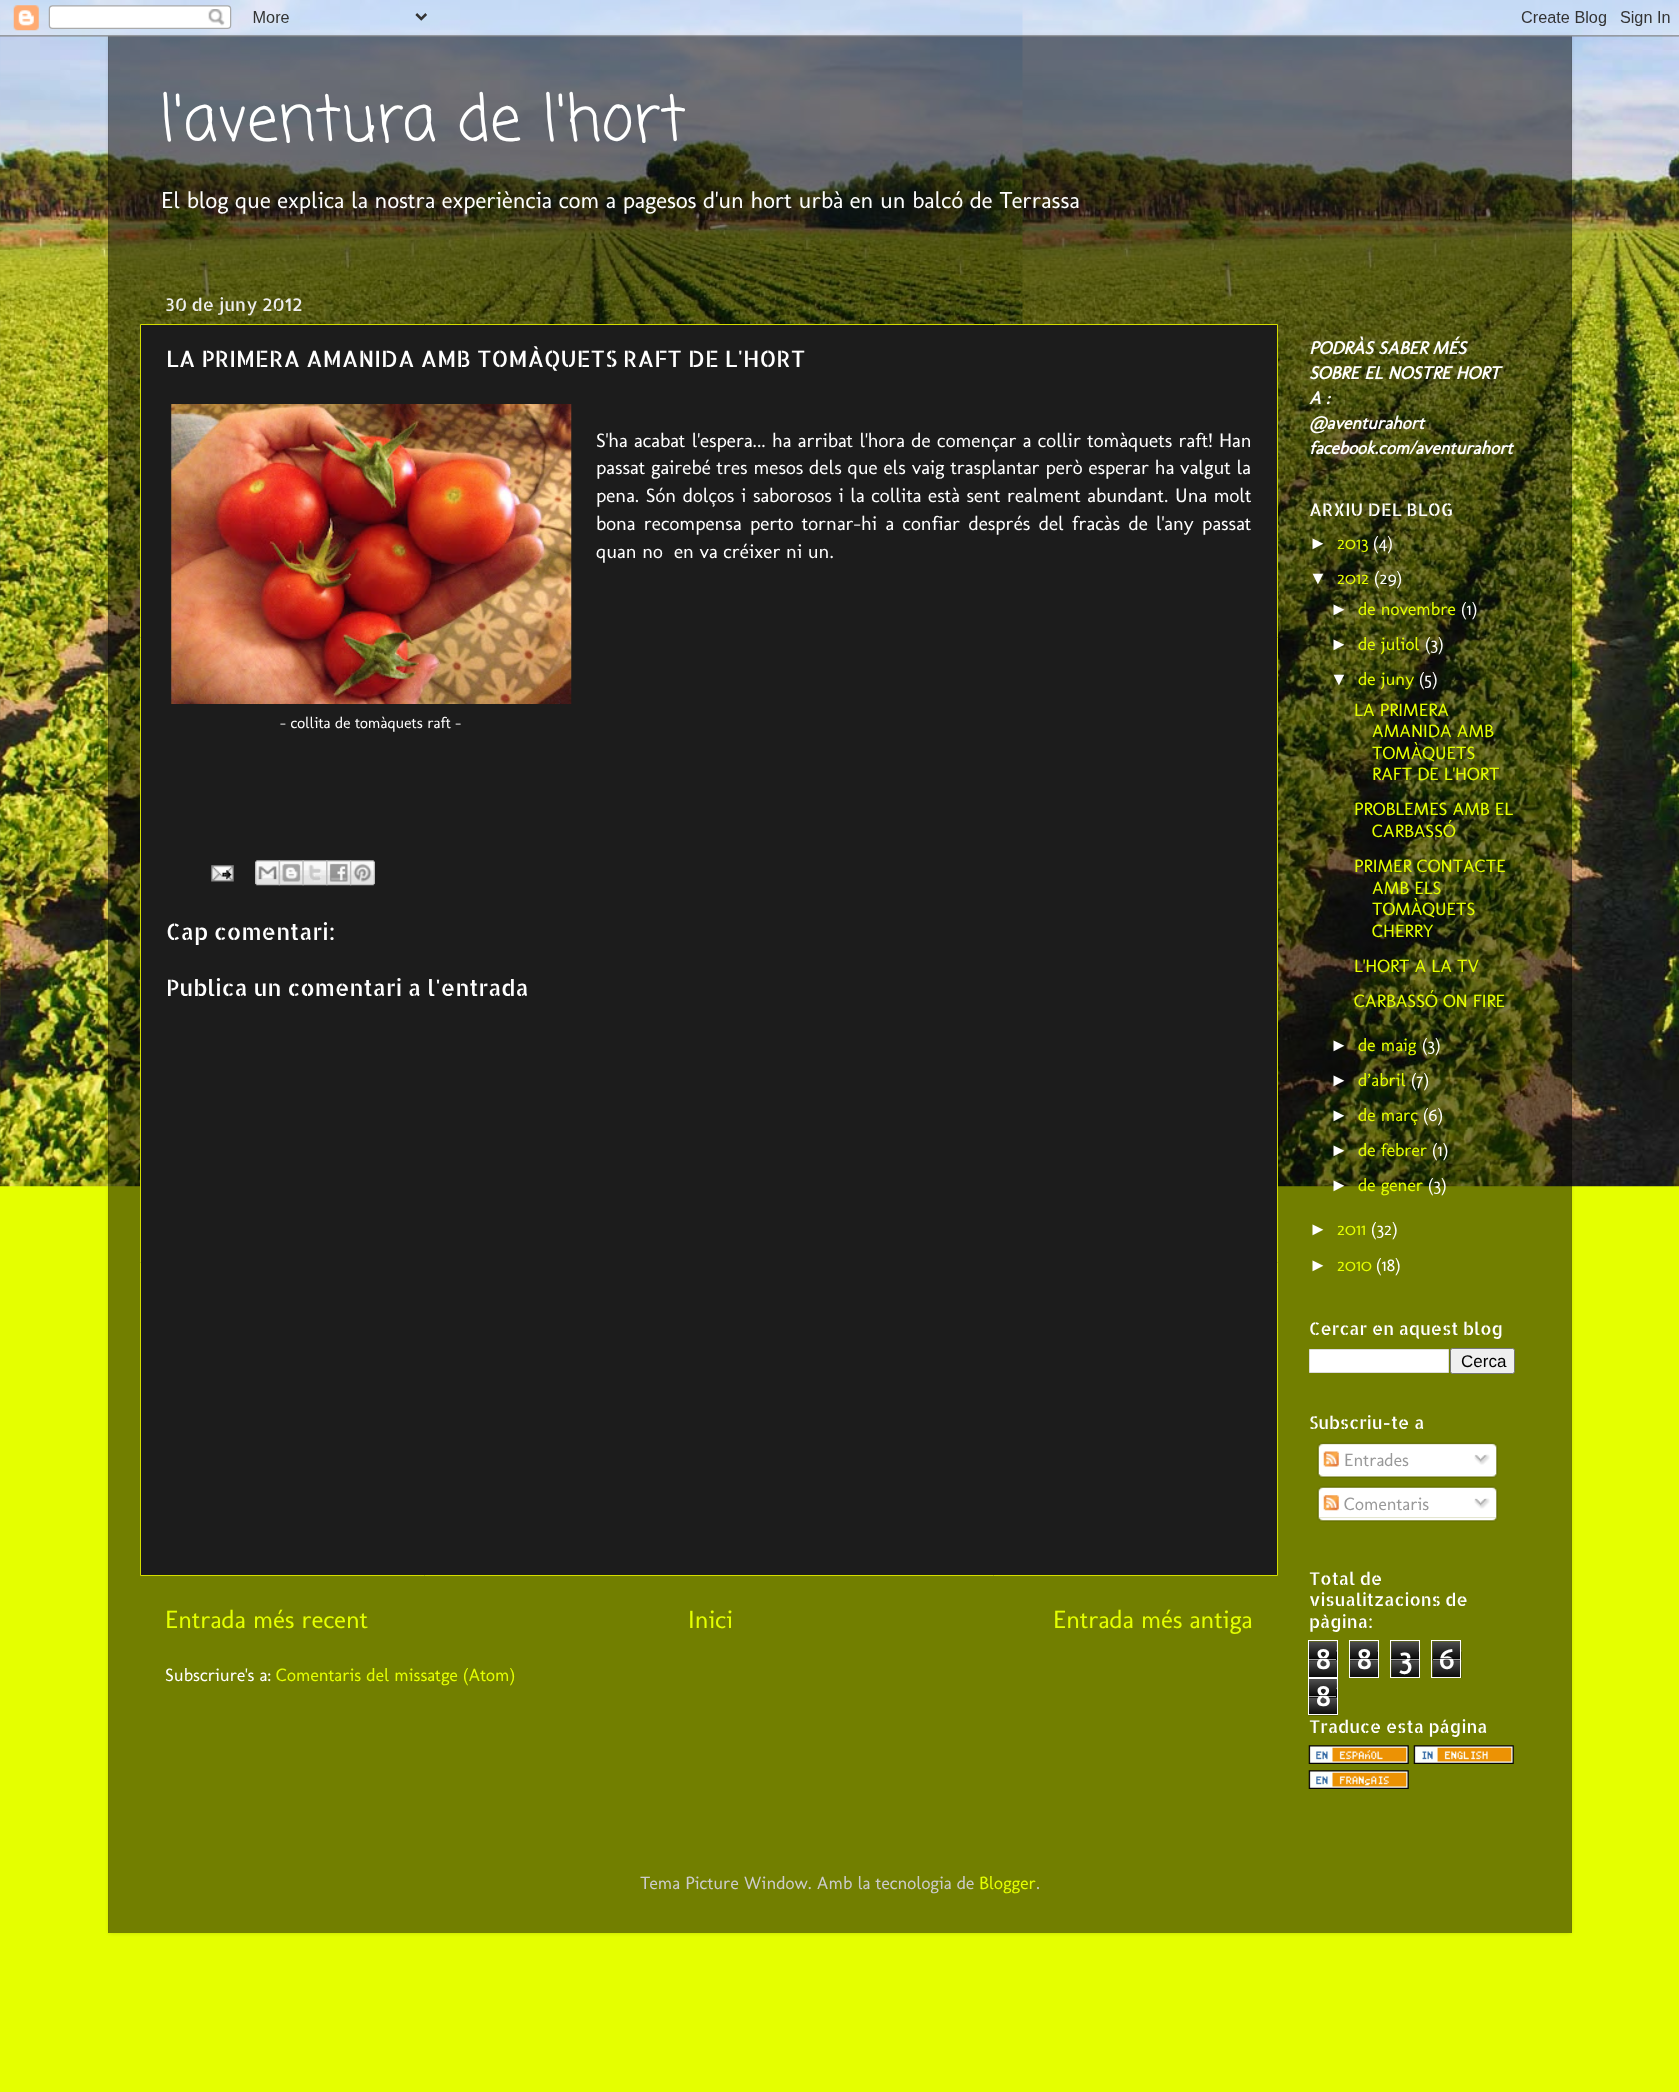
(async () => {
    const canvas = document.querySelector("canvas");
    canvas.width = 1679;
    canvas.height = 2092;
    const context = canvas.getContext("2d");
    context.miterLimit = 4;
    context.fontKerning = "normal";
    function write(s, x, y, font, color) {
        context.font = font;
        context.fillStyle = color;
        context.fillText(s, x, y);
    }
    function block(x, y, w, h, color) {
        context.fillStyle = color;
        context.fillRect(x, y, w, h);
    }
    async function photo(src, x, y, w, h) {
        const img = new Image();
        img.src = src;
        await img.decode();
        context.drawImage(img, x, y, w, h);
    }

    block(0, 0, 1679, 2092, "rgb(229, 255, 0)");
    await photo("media/1.png", 0, 0, 1679, 1187);
    context.save();
    context.beginPath();
    context.moveTo(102, 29);
    context.lineTo(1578, 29);
    context.lineTo(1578, 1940);
    context.lineTo(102, 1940);
    context.closePath();
    context.moveTo(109, 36);
    context.lineTo(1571, 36);
    context.lineTo(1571, 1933);
    context.lineTo(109, 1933);
    context.closePath();
    context.clip("evenodd");
    context.fillStyle = "rgba(0, 0, 0, 0.15)";
    context.filter = "blur(2px)";
    context.beginPath();
    context.rect(109, 36, 1462, 1897);
    context.fill();
    context.filter = "none";
    context.restore();
    block(108, 36, 1464, 1897, "rgba(0, 0, 0, 0.5)");
    await photo("media/2.png", 0, 0, 1679, 37);
    write("l'aventura de l'hort", 159, 140, "62.5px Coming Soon", "rgb(255, 255, 255)");
    write("El blog que explica la nostra experiència com a pagesos d'un hort urbà en un balcó de Terrassa", 161, 208, "23.4px Molengo", "rgb(255, 255, 255)");
    write("30 de juny 2012", 165, 311, "17.5px Allerta Stencil", "rgb(238, 238, 238)");
    context.fillStyle = "rgb(28, 28, 28)";
    context.beginPath();
    context.rect(140.5, 324.5, 1137, 1251);
    context.fill();
    context.strokeStyle = "rgb(212, 221, 0)";
    context.stroke();
    write("LA PRIMERA AMANIDA AMB TOMÀQUETS RAFT DE L'HORT", 166, 367, "22.5px Allerta Stencil", "rgb(255, 255, 255)");
    context.wordSpacing = "0.75px";
    write("S'ha acabat l'espera... ha arribat l'hora de començar a collir tomàquets raft! Han", 596, 447, "19.8px Molengo", "rgb(255, 255, 255)");
    context.wordSpacing = "0.2px";
    write("passat gairebé tres mesos dels que els vaig trasplantar però esperar ha valgut la", 596, 474, "19.8px Molengo", "rgb(255, 255, 255)");
    context.wordSpacing = "1px";
    write("pena. Són dolços i saborosos i la collita està sent realment abundant. Una molt", 596, 502, "19.8px Molengo", "rgb(255, 255, 255)");
    context.wordSpacing = "2.75px";
    write("bona recompensa perto tornar-hi a confiar després del fracàs de l'any passat", 596, 530, "19.8px Molengo", "rgb(255, 255, 255)");
    context.wordSpacing = "0px";
    write("quan no  en va créixer ni un.", 596, 558, "19.8px Molengo", "rgb(255, 255, 255)");
    await photo("media/3.png", 171, 404, 401, 300);
    write("- collita de tomàquets raft -", 280, 728, "15.8px Molengo", "rgb(255, 255, 255)");
    await photo("media/4.png", 211, 865, 23, 17);
    await photo("media/5.png", 255, 860, 25, 26);
    await photo("media/6.png", 278, 860, 26, 26);
    await photo("media/7.png", 302, 860, 26, 26);
    await photo("media/8.png", 326, 860, 26, 26);
    await photo("media/9.png", 350, 860, 25, 26);
    write("Cap comentari:", 166, 940, "22.5px Allerta Stencil", "rgb(255, 255, 255)");
    write("Publica un comentari a l'entrada", 166, 996, "22.5px Allerta Stencil", "rgb(255, 255, 255)");
    write("Entrada més recent", 165, 1628, "25.25px Molengo", "rgb(228, 255, 0)");
    write("Inici", 688, 1628, "25.25px Molengo", "rgb(228, 255, 0)");
    write("Entrada més antiga", 1053, 1628, "25.25px Molengo", "rgb(228, 255, 0)");
    write("Subscriure's a:", 165, 1681, "18px Molengo", "rgb(255, 255, 255)");
    write("Comentaris del missatge (Atom)", 276, 1681, "18px Molengo", "rgb(228, 255, 0)");
    write("PODRÀS SABER MÉS", 1309, 354, "italic bold 18px Molengo", "rgb(255, 255, 255)");
    write("SOBRE EL NOSTRE HORT", 1309, 379, "italic bold 18px Molengo", "rgb(255, 255, 255)");
    write("A :", 1309, 404, "italic bold 18px Molengo", "rgb(255, 255, 255)");
    write("@aventurahort", 1309, 429, "italic bold 18px Molengo", "rgb(255, 255, 255)");
    write("facebook.com/aventurahort", 1309, 454, "italic bold 18px Molengo", "rgb(255, 255, 255)");
    write("ARXIU DEL BLOG", 1309, 516, "17.5px Allerta Stencil", "rgb(255, 255, 255)");
    write("►", 1309, 549, "18px Liberation Sans", "rgb(255, 255, 255)");
    write("2013", 1337, 549, "18px Molengo", "rgb(228, 255, 0)");
    write("(4)", 1373, 549, "18px Molengo", "rgb(255, 255, 255)");
    write("▼", 1309, 584, "18px Liberation Sans", "rgb(255, 255, 255)");
    write("2012", 1337, 584, "18px Molengo", "rgb(228, 255, 0)");
    write("(29)", 1374, 584, "18px Molengo", "rgb(255, 255, 255)");
    write("►", 1330, 615, "18px Liberation Sans", "rgb(255, 255, 255)");
    write("de novembre", 1358, 615, "18px Molengo", "rgb(228, 255, 0)");
    write("(1)", 1461, 615, "18px Molengo", "rgb(255, 255, 255)");
    write("►", 1330, 650, "18px Liberation Sans", "rgb(255, 255, 255)");
    write("de juliol", 1358, 650, "18px Molengo", "rgb(228, 255, 0)");
    write("(3)", 1425, 650, "18px Molengo", "rgb(255, 255, 255)");
    write("▼", 1330, 685, "18px Liberation Sans", "rgb(255, 255, 255)");
    write("de juny", 1358, 685, "18px Molengo", "rgb(228, 255, 0)");
    write("(5)", 1419, 685, "18px Molengo", "rgb(255, 255, 255)");
    write("LA PRIMERA", 1354, 716, "18px Molengo", "rgb(228, 255, 0)");
    write("AMANIDA AMB", 1372, 737, "18px Molengo", "rgb(228, 255, 0)");
    write("TOMÀQUETS", 1372, 759, "18px Molengo", "rgb(228, 255, 0)");
    write("RAFT DE L'HORT", 1372, 780, "18px Molengo", "rgb(228, 255, 0)");
    write("PROBLEMES AMB EL", 1354, 815, "18px Molengo", "rgb(228, 255, 0)");
    write("CARBASSÓ", 1372, 837, "18px Molengo", "rgb(228, 255, 0)");
    write("PRIMER CONTACTE", 1354, 872, "18px Molengo", "rgb(228, 255, 0)");
    write("AMB ELS", 1372, 894, "18px Molengo", "rgb(228, 255, 0)");
    write("TOMÀQUETS", 1372, 915, "18px Molengo", "rgb(228, 255, 0)");
    write("CHERRY", 1372, 937, "18px Molengo", "rgb(228, 255, 0)");
    write("L'HORT A LA TV", 1354, 972, "18px Molengo", "rgb(228, 255, 0)");
    write("CARBASSÓ ON FIRE", 1354, 1007, "18px Molengo", "rgb(228, 255, 0)");
    write("►", 1330, 1051, "18px Liberation Sans", "rgb(255, 255, 255)");
    write("de maig", 1358, 1051, "18px Molengo", "rgb(228, 255, 0)");
    write("(3)", 1422, 1051, "18px Molengo", "rgb(255, 255, 255)");
    write("►", 1330, 1086, "18px Liberation Sans", "rgb(255, 255, 255)");
    write("d’abril", 1358, 1086, "18px Molengo", "rgb(228, 255, 0)");
    write("(7)", 1411, 1086, "18px Molengo", "rgb(255, 255, 255)");
    write("►", 1330, 1121, "18px Liberation Sans", "rgb(255, 255, 255)");
    write("de març", 1358, 1121, "18px Molengo", "rgb(228, 255, 0)");
    write("(6)", 1423, 1121, "18px Molengo", "rgb(255, 255, 255)");
    write("►", 1330, 1156, "18px Liberation Sans", "rgb(255, 255, 255)");
    write("de febrer", 1358, 1156, "18px Molengo", "rgb(228, 255, 0)");
    write("(1)", 1432, 1156, "18px Molengo", "rgb(255, 255, 255)");
    write("►", 1330, 1191, "18px Liberation Sans", "rgb(255, 255, 255)");
    write("de gener", 1358, 1191, "18px Molengo", "rgb(228, 255, 0)");
    write("(3)", 1428, 1191, "18px Molengo", "rgb(255, 255, 255)");
    write("►", 1309, 1235, "18px Liberation Sans", "rgb(255, 255, 255)");
    write("2011", 1337, 1235, "18px Molengo", "rgb(228, 255, 0)");
    write("(32)", 1371, 1235, "18px Molengo", "rgb(255, 255, 255)");
    write("►", 1309, 1271, "18px Liberation Sans", "rgb(255, 255, 255)");
    write("2010", 1337, 1271, "18px Molengo", "rgb(228, 255, 0)");
    write("(18)", 1376, 1271, "18px Molengo", "rgb(255, 255, 255)");
    write("Cercar en aquest blog", 1309, 1335, "17.5px Allerta Stencil", "rgb(255, 255, 255)");
    context.beginPath();
    context.rect(1309.5, 1349.5, 139, 23);
    context.fill();
    context.strokeStyle = "rgb(221, 221, 221)";
    context.stroke();
    context.fillStyle = "rgb(239, 239, 239)";
    context.beginPath();
    context.roundRect(1450.5, 1348.5, 64, 25, 2);
    context.fill();
    context.strokeStyle = "rgb(118, 118, 118)";
    context.stroke();
    write("Cerca", 1461, 1367, "17px Liberation Sans", "rgb(0, 0, 0)");
    write("Subscriu-te a", 1309, 1429, "17.5px Allerta Stencil", "rgb(255, 255, 255)");
    await photo("media/10.png", 1317, 1442, 181, 32);
    await photo("media/11.png", 1323, 1451, 16, 16);
    write("Entrades", 1344, 1466, "18px Molengo", "rgb(153, 153, 153)");
    await photo("media/12.png", 1474, 1454, 16, 11);
    await photo("media/13.png", 1317, 1474, 181, 4);
    await photo("media/14.png", 1317, 1486, 181, 32);
    await photo("media/15.png", 1323, 1495, 16, 16);
    write("Comentaris", 1344, 1510, "18px Molengo", "rgb(153, 153, 153)");
    await photo("media/16.png", 1474, 1498, 16, 11);
    await photo("media/17.png", 1317, 1517, 181, 5);
    write("Total de", 1309, 1585, "17.5px Allerta Stencil", "rgb(255, 255, 255)");
    write("visualitzacions de", 1309, 1606, "17.5px Allerta Stencil", "rgb(255, 255, 255)");
    write("pàgina:", 1309, 1628, "17.5px Allerta Stencil", "rgb(255, 255, 255)");
    await photo("media/18.png", 1309, 1641, 28, 36);
    context.strokeStyle = "rgb(255, 255, 255)";
    context.strokeRect(1308.5, 1640.5, 29, 37);
    write("8", 1316, 1669, "bold 30px Molengo", "rgb(255, 255, 255)");
    block(1309, 1658, 27, 1, "rgba(0, 0, 0, 0.65)");
    block(1309, 1659, 27, 1, "rgba(255, 255, 255, 0.65)");
    await photo("media/19.png", 1350, 1641, 28, 36);
    context.strokeRect(1349.5, 1640.5, 29, 37);
    write("8", 1357, 1669, "bold 30px Molengo", "rgb(255, 255, 255)");
    block(1350, 1658, 28, 1, "rgba(0, 0, 0, 0.65)");
    block(1350, 1659, 28, 1, "rgba(255, 255, 255, 0.65)");
    await photo("media/20.png", 1391, 1641, 28, 36);
    context.strokeRect(1390.5, 1640.5, 29, 37);
    write("3", 1399, 1669, "bold 30px Molengo", "rgb(255, 255, 255)");
    block(1391, 1658, 28, 1, "rgba(0, 0, 0, 0.65)");
    block(1391, 1659, 28, 1, "rgba(255, 255, 255, 0.65)");
    await photo("media/21.png", 1432, 1641, 30, 37);
    context.strokeRect(1431.5, 1640.5, 29, 37);
    write("6", 1439, 1669, "bold 30px Molengo", "rgb(255, 255, 255)");
    block(1433, 1658, 27, 1, "rgba(0, 0, 0, 0.65)");
    block(1433, 1659, 27, 1, "rgba(255, 255, 255, 0.65)");
    await photo("media/22.png", 1308, 1679, 30, 37);
    context.strokeRect(1308.5, 1678.5, 29, 36);
    write("8", 1316, 1706, "bold 30px Molengo", "rgb(255, 255, 255)");
    block(1309, 1695, 27, 1, "rgba(0, 0, 0, 0.65)");
    block(1309, 1696, 27, 1, "rgba(255, 255, 255, 0.65)");
    write("Traduce esta página", 1309, 1733, "17.5px Allerta Stencil", "rgb(255, 255, 255)");
    await photo("media/23.png", 1308, 1745, 101, 19);
    await photo("media/24.png", 1413, 1745, 101, 19);
    await photo("media/25.png", 1308, 1770, 101, 19);
    write("Tema Picture Window. Amb la tecnologia de", 640, 1889, "18px Molengo", "rgb(204, 204, 204)");
    write("Blogger", 979, 1889, "18px Molengo", "rgb(228, 255, 0)");
    write(".", 1036, 1889, "18px Molengo", "rgb(204, 204, 204)");
})();
